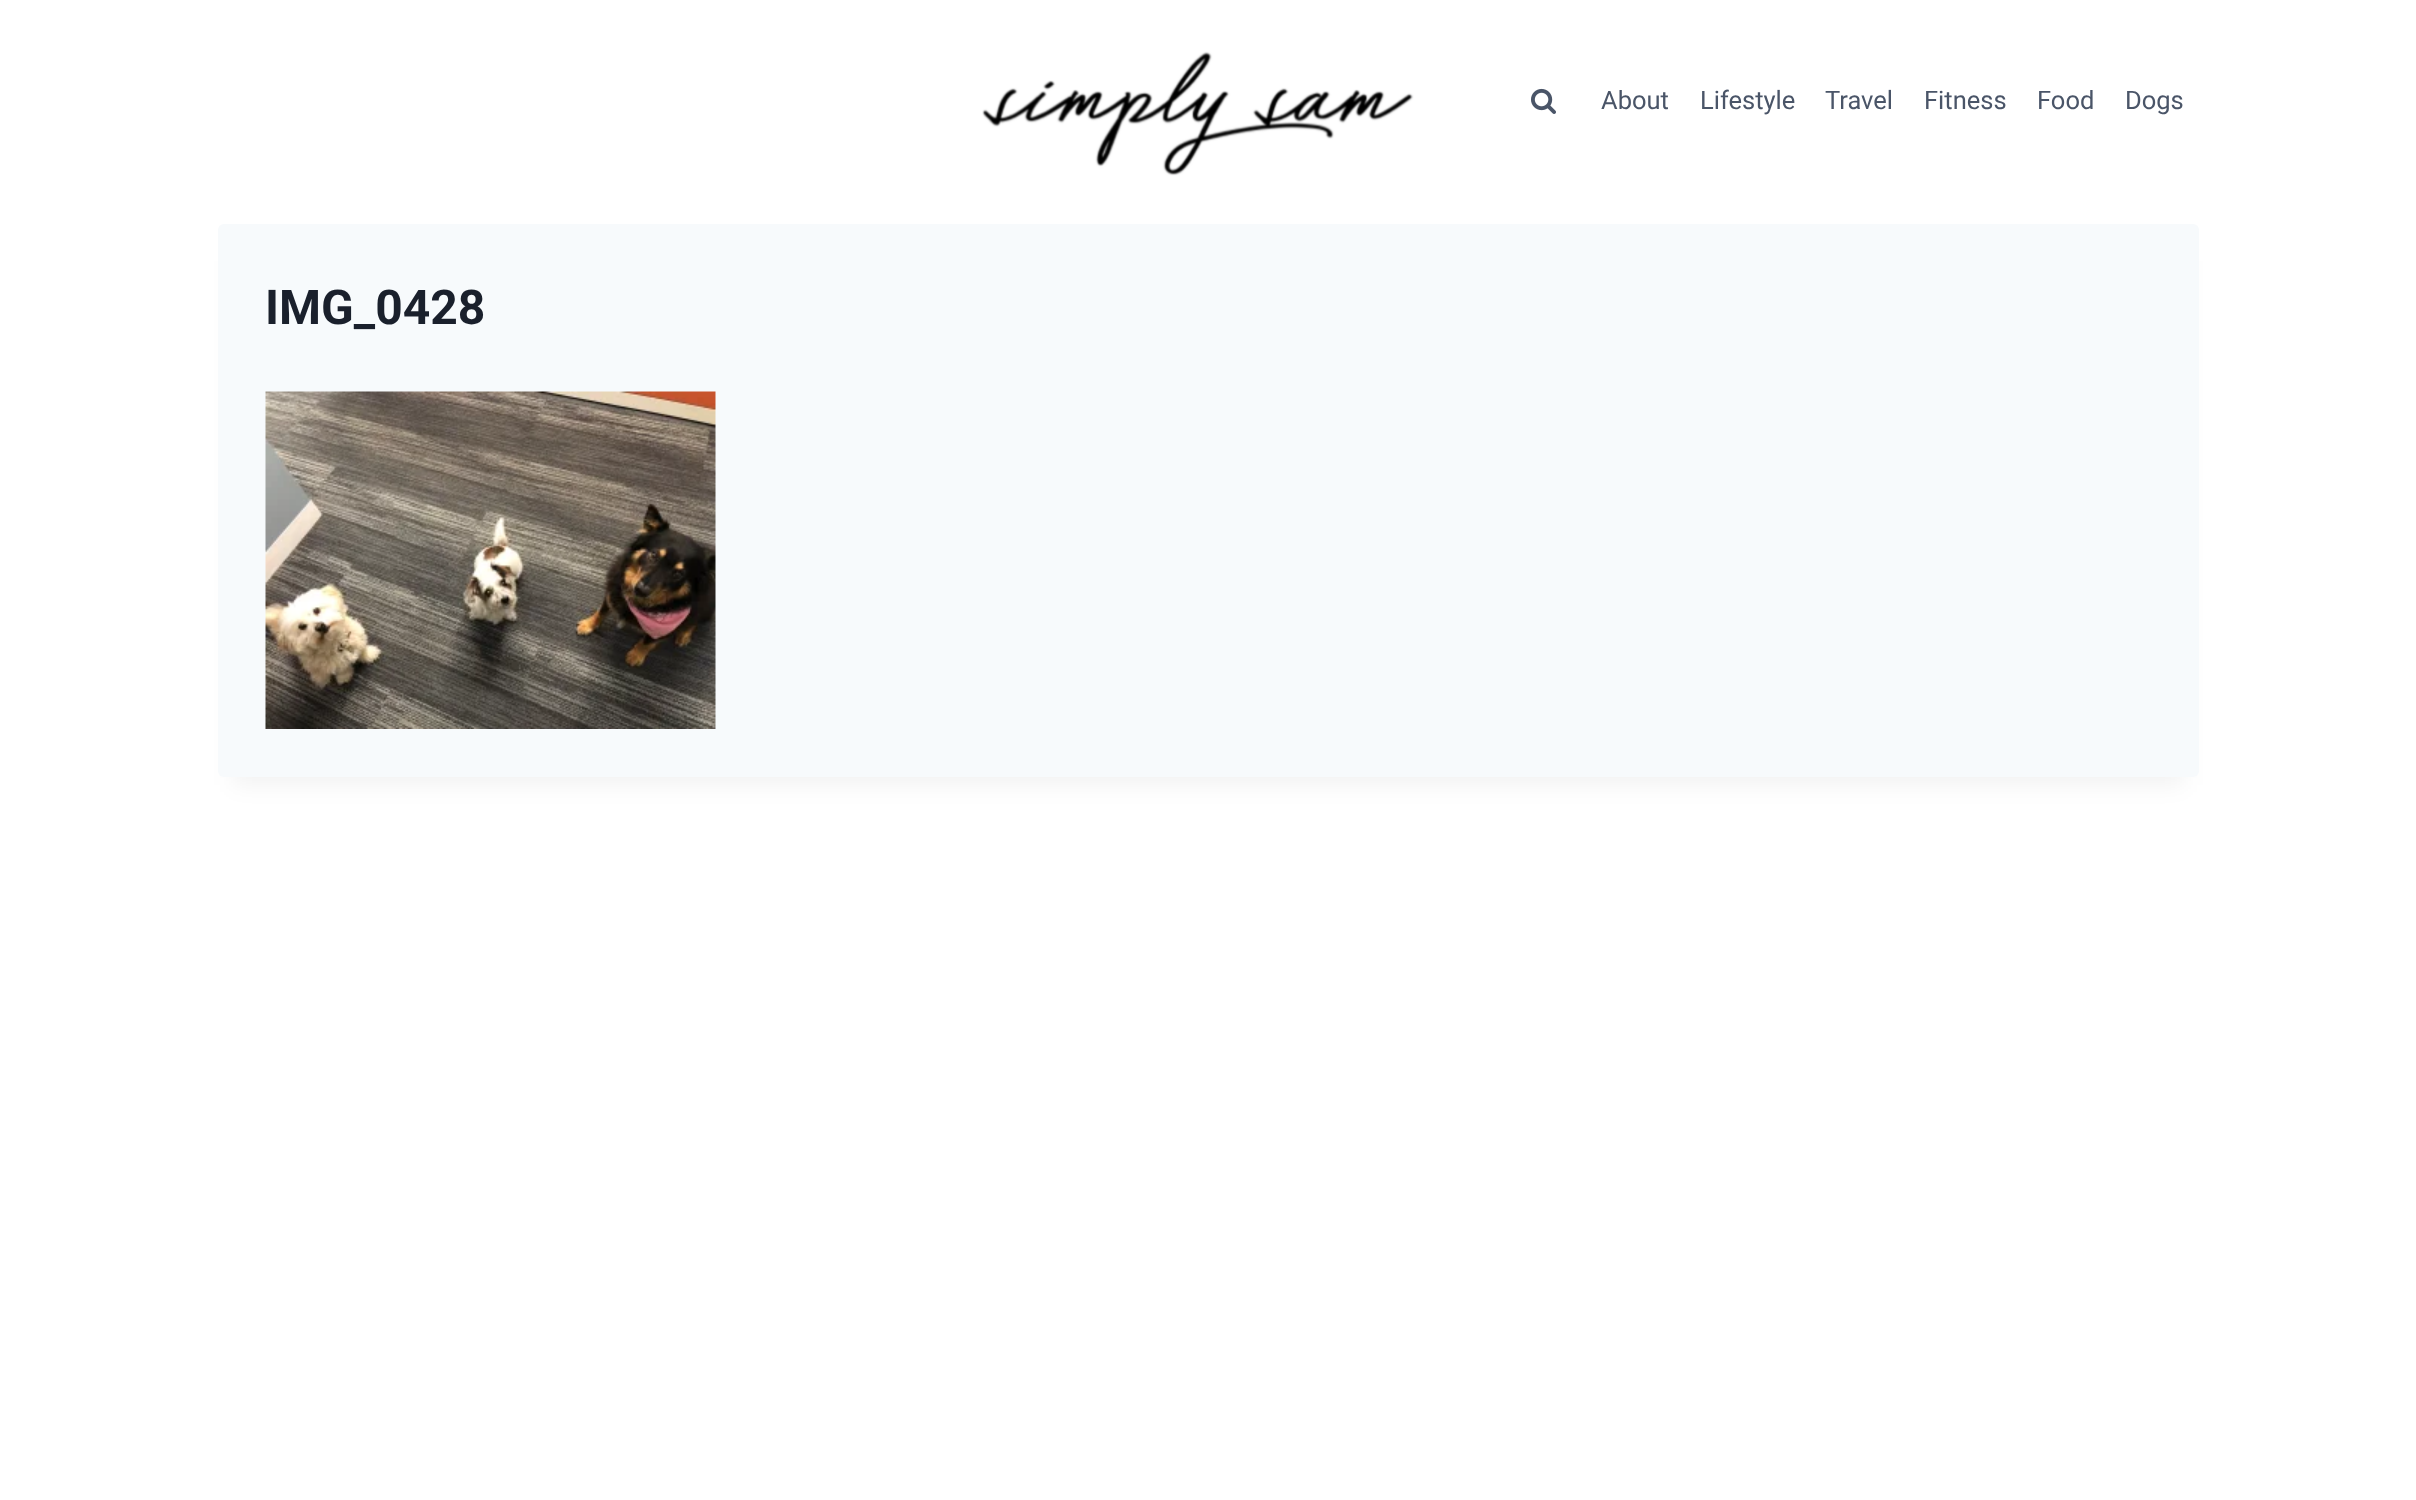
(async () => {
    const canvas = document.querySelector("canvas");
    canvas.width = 2416;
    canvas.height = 1500;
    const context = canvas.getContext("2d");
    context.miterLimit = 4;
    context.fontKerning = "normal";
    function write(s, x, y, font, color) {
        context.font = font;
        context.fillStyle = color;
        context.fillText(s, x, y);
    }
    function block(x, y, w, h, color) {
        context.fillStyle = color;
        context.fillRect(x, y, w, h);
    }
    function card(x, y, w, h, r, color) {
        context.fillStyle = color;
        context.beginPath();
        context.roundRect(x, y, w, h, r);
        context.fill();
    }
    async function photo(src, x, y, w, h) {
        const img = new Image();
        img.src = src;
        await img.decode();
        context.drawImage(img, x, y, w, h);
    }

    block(0, 0, 2416, 1500, "rgb(255, 255, 255)");
    await photo("media/1.png", 982, 51, 432, 125);
    await photo("media/2.png", 1531, 88, 25, 26);
    write("About", 1601, 109, "25.5px Roboto", "rgb(74, 85, 104)");
    write("Lifestyle", 1700, 109, "25.5px Roboto", "rgb(74, 85, 104)");
    write("Travel", 1825, 109, "25.5px Roboto", "rgb(74, 85, 104)");
    write("Fitness", 1924, 109, "25.5px Roboto", "rgb(74, 85, 104)");
    write("Food", 2037, 109, "25.5px Roboto", "rgb(74, 85, 104)");
    write("Dogs", 2125, 109, "25.5px Roboto", "rgb(74, 85, 104)");
    context.fillStyle = "rgba(0, 0, 0, 0.05)";
    context.filter = "blur(11px)";
    context.beginPath();
    context.rect(233, 261, 1951, 524);
    context.fill();
    context.filter = "none";
    card(218, 224, 1981, 553, 6, "rgb(247, 250, 252)");
    write("IMG_0428", 265, 324, "bold 48px Roboto", "rgb(26, 32, 44)");
    await photo("media/3.png", 265, 391, 451, 338);
})();
